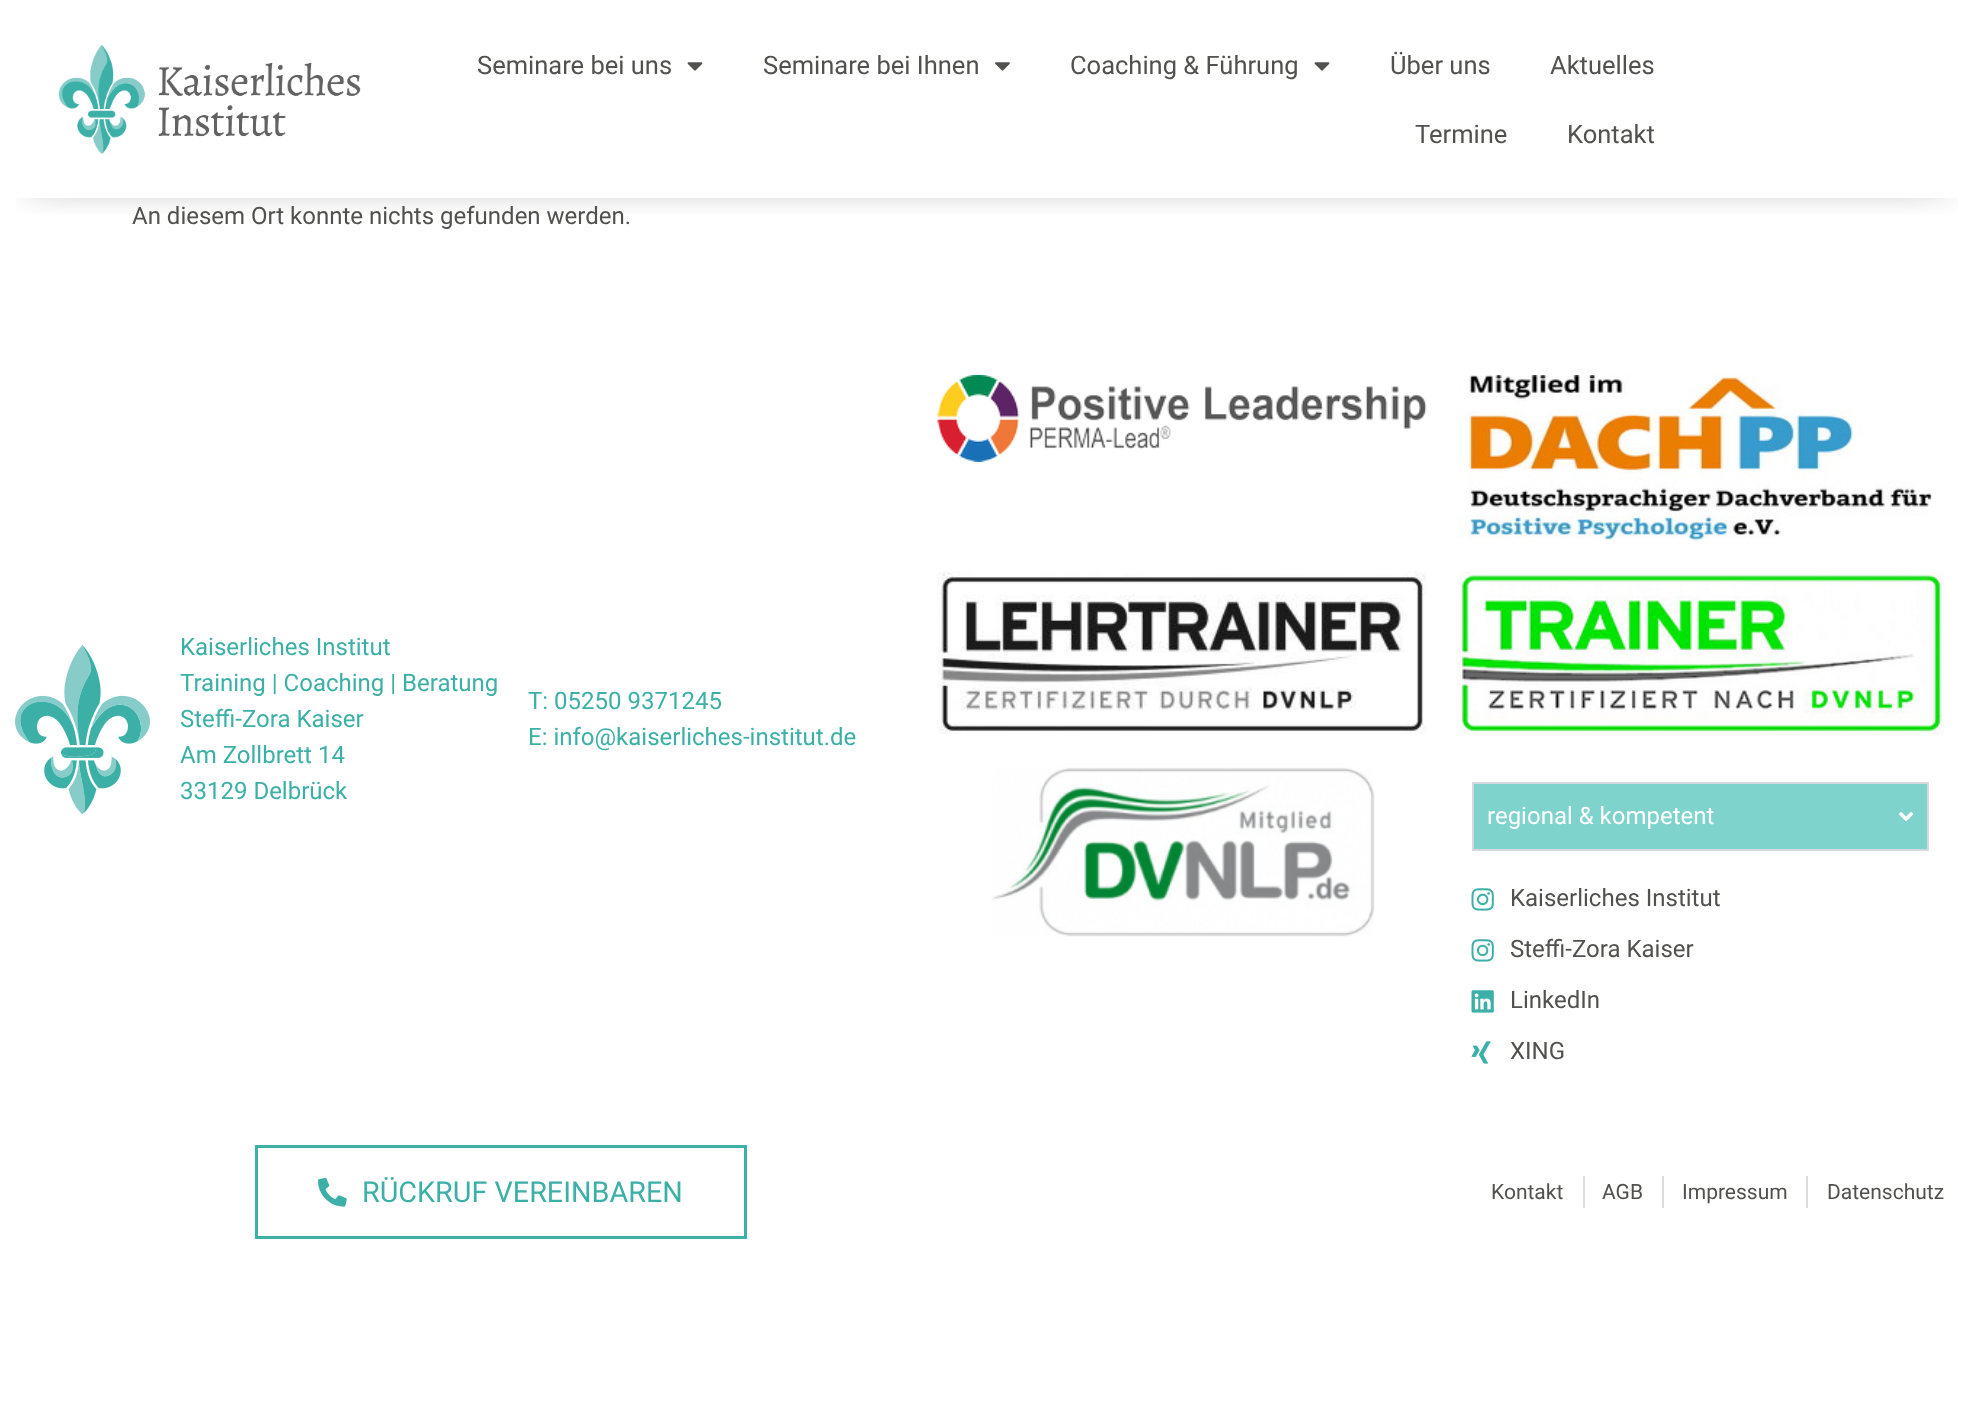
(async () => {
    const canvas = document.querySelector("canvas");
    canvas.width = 1973;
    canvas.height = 1422;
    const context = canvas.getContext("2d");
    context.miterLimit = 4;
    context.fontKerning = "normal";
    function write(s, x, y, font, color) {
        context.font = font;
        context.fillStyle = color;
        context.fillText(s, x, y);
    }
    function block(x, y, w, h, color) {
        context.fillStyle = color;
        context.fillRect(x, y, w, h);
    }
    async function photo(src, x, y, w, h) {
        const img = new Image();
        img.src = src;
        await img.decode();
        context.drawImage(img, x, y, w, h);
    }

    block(0, 0, 1973, 1422, "rgb(255, 255, 255)");
    context.save();
    context.beginPath();
    context.rect(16, 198, 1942, 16);
    context.clip();
    context.fillStyle = "rgba(0, 0, 0, 0.5)";
    context.filter = "blur(20px)";
    context.beginPath();
    context.rect(30, 41, 1914, 138);
    context.fill();
    context.filter = "none";
    context.restore();
    await photo("media/1.png", 58, 44, 303, 110);
    write("Seminare bei uns", 477, 74, "25.5px Roboto", "rgb(81, 81, 79)");
    await photo("media/2.png", 687, 62, 16, 9);
    write("Seminare bei Ihnen", 763, 74, "25.5px Roboto", "rgb(81, 81, 79)");
    await photo("media/3.png", 995, 62, 15, 9);
    write("Coaching & Führung", 1070, 74, "25.5px Roboto", "rgb(81, 81, 79)");
    await photo("media/2.png", 1314, 62, 16, 9);
    write("Über uns", 1390, 74, "25.5px Roboto", "rgb(81, 81, 79)");
    write("Aktuelles", 1550, 74, "25.5px Roboto", "rgb(81, 81, 79)");
    write("Termine", 1415, 143, "25.5px Roboto", "rgb(81, 81, 79)");
    write("Kontakt", 1567, 143, "25.5px Roboto", "rgb(81, 81, 79)");
    write("An diesem Ort konnte nichts gefunden werden.", 132, 224, "24px Roboto", "rgb(81, 81, 79)");
    await photo("media/4.png", 15, 645, 135, 170);
    write("Kaiserliches Institut", 180, 655, "24px Roboto", "rgb(60, 176, 167)");
    write("Training | Coaching | Beratung", 180, 691, "24px Roboto", "rgb(60, 176, 167)");
    write("Steffi-Zora Kaiser", 180, 727, "24px Roboto", "rgb(60, 176, 167)");
    write("Am Zollbrett 14", 180, 763, "24px Roboto", "rgb(60, 176, 167)");
    write("33129 Delbrück", 180, 799, "24px Roboto", "rgb(60, 176, 167)");
    write("T: 05250 9371245", 528, 709, "24px Roboto", "rgb(60, 176, 167)");
    write("E: info@kaiserliches-institut.de", 528, 745, "24px Roboto", "rgb(60, 176, 167)");
    await photo("media/5.png", 937, 375, 490, 87);
    await photo("media/6.png", 1456, 375, 476, 167);
    await photo("media/7.png", 937, 571, 490, 163);
    await photo("media/8.png", 1456, 571, 488, 166);
    await photo("media/9.png", 991, 767, 384, 170);
    context.fillStyle = "rgb(127, 211, 205)";
    context.beginPath();
    context.rect(1473, 783, 455, 67);
    context.fill();
    context.strokeStyle = "rgb(213, 216, 220)";
    context.lineWidth = 2;
    context.stroke();
    write("regional & kompetent", 1487, 824, "24px Roboto", "rgb(255, 255, 255)");
    await photo("media/10.png", 1899, 812, 15, 9);
    await photo("media/11.png", 1471, 888, 23, 23);
    write("Kaiserliches Institut", 1510, 906, "24px Roboto", "rgb(81, 81, 79)");
    await photo("media/11.png", 1471, 939, 23, 23);
    write("Steffi-Zora Kaiser", 1510, 957, "24px Roboto", "rgb(81, 81, 79)");
    await photo("media/12.png", 1471, 990, 23, 23);
    write("LinkedIn", 1510, 1008, "24px Roboto", "rgb(81, 81, 79)");
    await photo("media/13.png", 1471, 1041, 20, 23);
    write("XING", 1510, 1059, "24px Roboto", "rgb(81, 81, 79)");
    context.strokeStyle = "rgb(60, 176, 167)";
    context.lineWidth = 3;
    context.strokeRect(256.5, 1146.5, 489, 91);
    await photo("media/14.png", 318, 1177, 29, 30);
    write("RÜCKRUF VEREINBAREN", 362, 1202, "28.75px Roboto", "rgb(60, 176, 167)");
    write("Kontakt", 1491, 1199, "21px Roboto", "rgb(81, 81, 79)");
    block(1583, 1176, 2, 32, "rgb(221, 221, 221)");
    write("AGB", 1602, 1199, "21px Roboto", "rgb(81, 81, 79)");
    block(1662, 1176, 2, 32, "rgb(221, 221, 221)");
    write("Impressum", 1682, 1199, "21px Roboto", "rgb(81, 81, 79)");
    block(1806, 1176, 2, 32, "rgb(221, 221, 221)");
    write("Datenschutz", 1827, 1199, "21px Roboto", "rgb(81, 81, 79)");
})();
